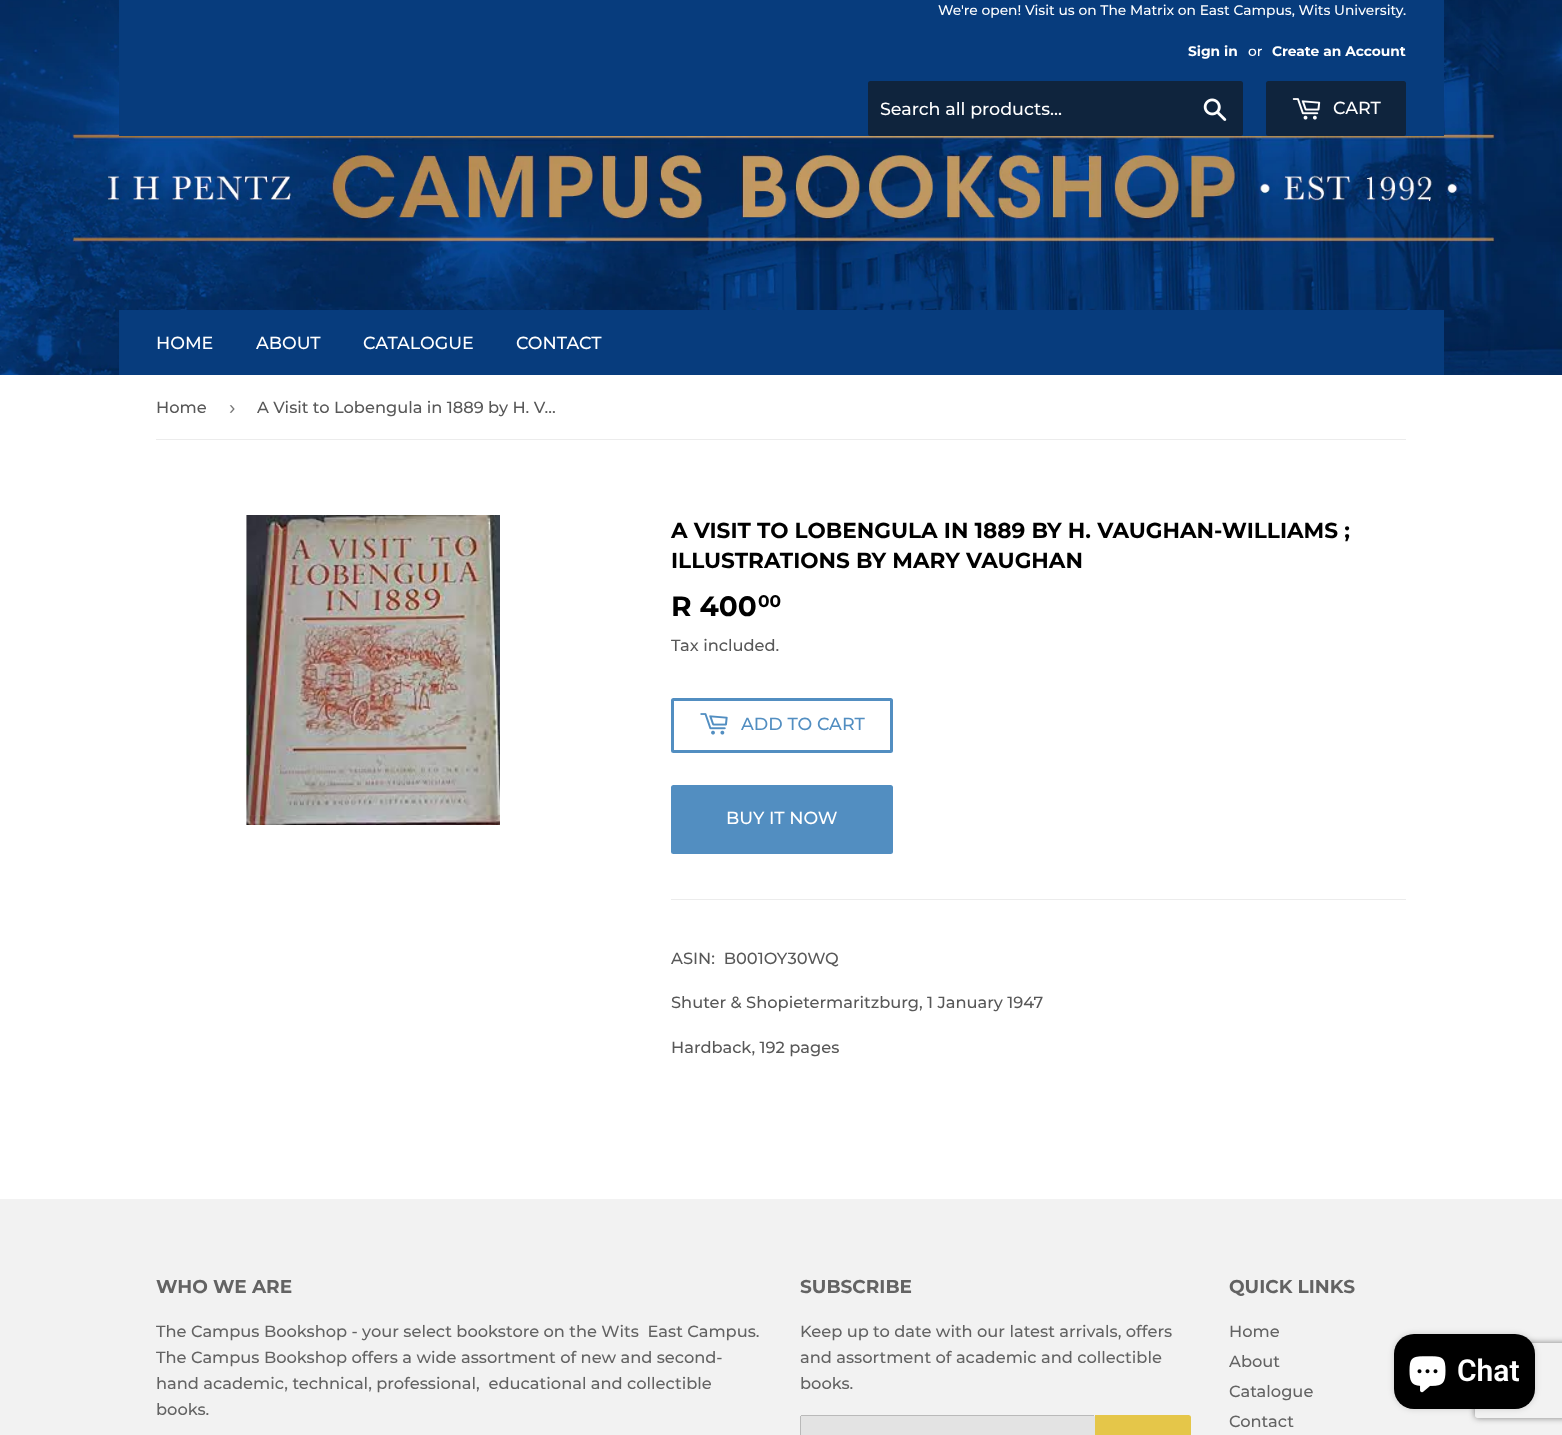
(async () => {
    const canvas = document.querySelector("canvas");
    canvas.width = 1562;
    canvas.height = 1435;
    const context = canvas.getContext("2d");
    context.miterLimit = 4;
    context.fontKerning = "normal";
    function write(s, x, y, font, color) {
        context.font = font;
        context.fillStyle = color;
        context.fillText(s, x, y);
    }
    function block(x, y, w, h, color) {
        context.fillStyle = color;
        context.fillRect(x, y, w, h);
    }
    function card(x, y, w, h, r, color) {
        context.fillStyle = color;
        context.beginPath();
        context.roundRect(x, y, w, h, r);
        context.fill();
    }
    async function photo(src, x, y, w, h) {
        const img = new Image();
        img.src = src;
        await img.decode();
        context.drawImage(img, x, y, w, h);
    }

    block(0, 0, 1562, 1435, "rgb(255, 255, 255)");
    await photo("media/1.png", 0, 0, 1562, 375);
    block(119, 0, 1325, 136, "rgb(7, 60, 125)");
    write("We're open! Visit us on The Matrix on East Campus, Wits University.", 938, 15, "500 13.8px Montserrat", "rgb(255, 255, 255)");
    write("Sign in", 1188, 56, "bold 13.8px Montserrat", "rgb(255, 255, 255)");
    write("or", 1248, 56, "500 13.8px Montserrat", "rgb(255, 255, 255)");
    write("Create an Account", 1272, 56, "bold 13.8px Montserrat", "rgb(255, 255, 255)");
    card(868, 81, 375, 55, 2.5, "rgb(15, 36, 61)");
    write("Search all products...", 880, 115, "500 17.5px Montserrat", "rgb(255, 255, 255)");
    await photo("media/2.png", 1203, 98, 24, 23);
    card(1266, 81, 140, 55, 2.5, "rgb(15, 36, 61)");
    await photo("media/3.png", 1292, 98, 29, 22);
    write("CART", 1333, 114, "500 17.5px Montserrat", "rgb(255, 255, 255)");
    block(119, 310, 1325, 65, "rgb(7, 60, 125)");
    write("HOME", 156, 349, "500 17.5px Montserrat", "rgb(255, 255, 255)");
    write("ABOUT", 256, 349, "500 17.5px Montserrat", "rgb(255, 255, 255)");
    write("CATALOGUE", 363, 349, "500 17.5px Montserrat", "rgb(255, 255, 255)");
    write("CONTACT", 516, 349, "500 17.5px Montserrat", "rgb(255, 255, 255)");
    block(156, 439, 1250, 1, "rgb(236, 236, 236)");
    write("Home", 156, 413, "500 16.25px Montserrat", "rgb(88, 88, 88)");
    write("›", 229, 414, "19px Liberation Sans", "rgb(118, 118, 118)");
    write("A Visit to Lobengula in 1889 by H. V…", 257, 413, "500 16.25px Montserrat", "rgb(88, 88, 88)");
    await photo("media/4.png", 246, 515, 254, 310);
    write("A VISIT TO LOBENGULA IN 1889 BY H. VAUGHAN-WILLIAMS ;", 671, 538, "bold 21.65px Montserrat", "rgb(0, 0, 0)");
    write("ILLUSTRATIONS BY MARY VAUGHAN", 671, 568, "bold 21.65px Montserrat", "rgb(0, 0, 0)");
    write("R 400", 671, 616, "bold 28px Montserrat", "rgb(0, 0, 0)");
    write("00", 758, 607, "bold 17px Montserrat", "rgb(0, 0, 0)");
    write("Tax included.", 671, 651, "500 16.25px Montserrat", "rgb(88, 88, 88)");
    context.beginPath();
    context.roundRect(672.5, 699.5, 219, 52, 1);
    context.strokeStyle = "rgb(82, 142, 193)";
    context.lineWidth = 3;
    context.stroke();
    await photo("media/5.png", 700, 713, 28, 22);
    write("ADD TO CART", 741, 730, "500 17.5px Montserrat", "rgb(82, 142, 193)");
    card(671, 785, 222, 69, 2.5, "rgb(82, 142, 193)");
    write("BUY IT NOW", 726, 824, "500 17.5px Montserrat", "rgb(255, 255, 255)");
    block(671, 899, 735, 1, "rgb(236, 236, 236)");
    write("ASIN:  B001OY30WQ", 671, 964, "500 16.25px Montserrat", "rgb(88, 88, 88)");
    write("Shuter & Shopietermaritzburg, 1 January 1947", 671, 1008, "500 16.25px Montserrat", "rgb(88, 88, 88)");
    write("Hardback, 192 pages", 671, 1053, "500 16.25px Montserrat", "rgb(88, 88, 88)");
    block(0, 1199, 1562, 236, "rgb(242, 242, 242)");
    write("WHO WE ARE", 156, 1293, "bold 18.5px Montserrat", "rgb(99, 99, 99)");
    write("The Campus Bookshop - your select bookstore on the Wits  East Campus.", 156, 1337, "500 16.25px Montserrat", "rgb(99, 99, 99)");
    write("The Campus Bookshop offers a wide assortment of new and second-", 156, 1363, "500 16.25px Montserrat", "rgb(99, 99, 99)");
    write("hand academic, technical, professional,  educational and collectible", 156, 1389, "500 16.25px Montserrat", "rgb(99, 99, 99)");
    write("books.", 156, 1415, "500 16.25px Montserrat", "rgb(99, 99, 99)");
    write("SUBSCRIBE", 800, 1293, "bold 18.5px Montserrat", "rgb(99, 99, 99)");
    write("Keep up to date with our latest arrivals, offers", 800, 1337, "500 16.25px Montserrat", "rgb(99, 99, 99)");
    write("and assortment of academic and collectible", 800, 1363, "500 16.25px Montserrat", "rgb(99, 99, 99)");
    write("books.", 800, 1389, "500 16.25px Montserrat", "rgb(99, 99, 99)");
    card(800, 1415, 295, 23, 2.5, "rgb(227, 227, 227)");
    block(801, 1415, 293, 1, "rgb(185, 185, 185)");
    block(800, 1416, 1, 19, "rgb(185, 185, 185)");
    context.fillStyle = "rgb(229, 198, 73)";
    context.beginPath();
    context.moveTo(1095, 1415);
    context.lineTo(1188.5, 1415);
    context.bezierCurveTo(1190, 1415, 1191, 1416, 1191, 1417.5);
    context.lineTo(1191, 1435.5);
    context.bezierCurveTo(1191, 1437, 1190, 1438, 1188.5, 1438);
    context.lineTo(1095, 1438);
    context.closePath();
    context.fill();
    write("QUICK LINKS", 1229, 1293, "bold 18.5px Montserrat", "rgb(99, 99, 99)");
    write("Home", 1229, 1337, "500 16.25px Montserrat", "rgb(99, 99, 99)");
    write("About", 1229, 1367, "500 16.25px Montserrat", "rgb(99, 99, 99)");
    write("Catalogue", 1229, 1397, "500 16.25px Montserrat", "rgb(99, 99, 99)");
    write("Contact", 1229, 1427, "500 16.25px Montserrat", "rgb(99, 99, 99)");
    context.save();
    context.beginPath();
    context.moveTo(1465, 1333);
    context.lineTo(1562, 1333);
    context.lineTo(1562, 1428);
    context.lineTo(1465, 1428);
    context.closePath();
    context.moveTo(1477.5, 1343);
    context.lineTo(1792.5, 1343);
    context.bezierCurveTo(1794, 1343, 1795, 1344, 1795, 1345.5);
    context.lineTo(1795, 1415.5);
    context.bezierCurveTo(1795, 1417, 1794, 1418, 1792.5, 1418);
    context.lineTo(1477.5, 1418);
    context.bezierCurveTo(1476, 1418, 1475, 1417, 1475, 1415.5);
    context.lineTo(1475, 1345.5);
    context.bezierCurveTo(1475, 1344, 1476, 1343, 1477.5, 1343);
    context.closePath();
    context.clip("evenodd");
    context.fillStyle = "rgb(128, 128, 128)";
    context.filter = "blur(3px)";
    context.beginPath();
    context.roundRect(1475, 1343, 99, 75, 2.5);
    context.fill();
    context.filter = "none";
    context.restore();
    context.fillStyle = "rgba(0, 0, 0, 0.15)";
    context.filter = "blur(3px)";
    context.beginPath();
    context.roundRect(1394, 1334, 141, 75, 20);
    context.fill();
    context.filter = "none";
    card(1394, 1334, 141, 75, 20, "rgb(0, 0, 0)");
    await photo("media/6.png", 1409, 1356, 37, 37);
    write("Chat", 1457, 1381, "600 30px Roboto", "rgb(255, 255, 255)");
})();
